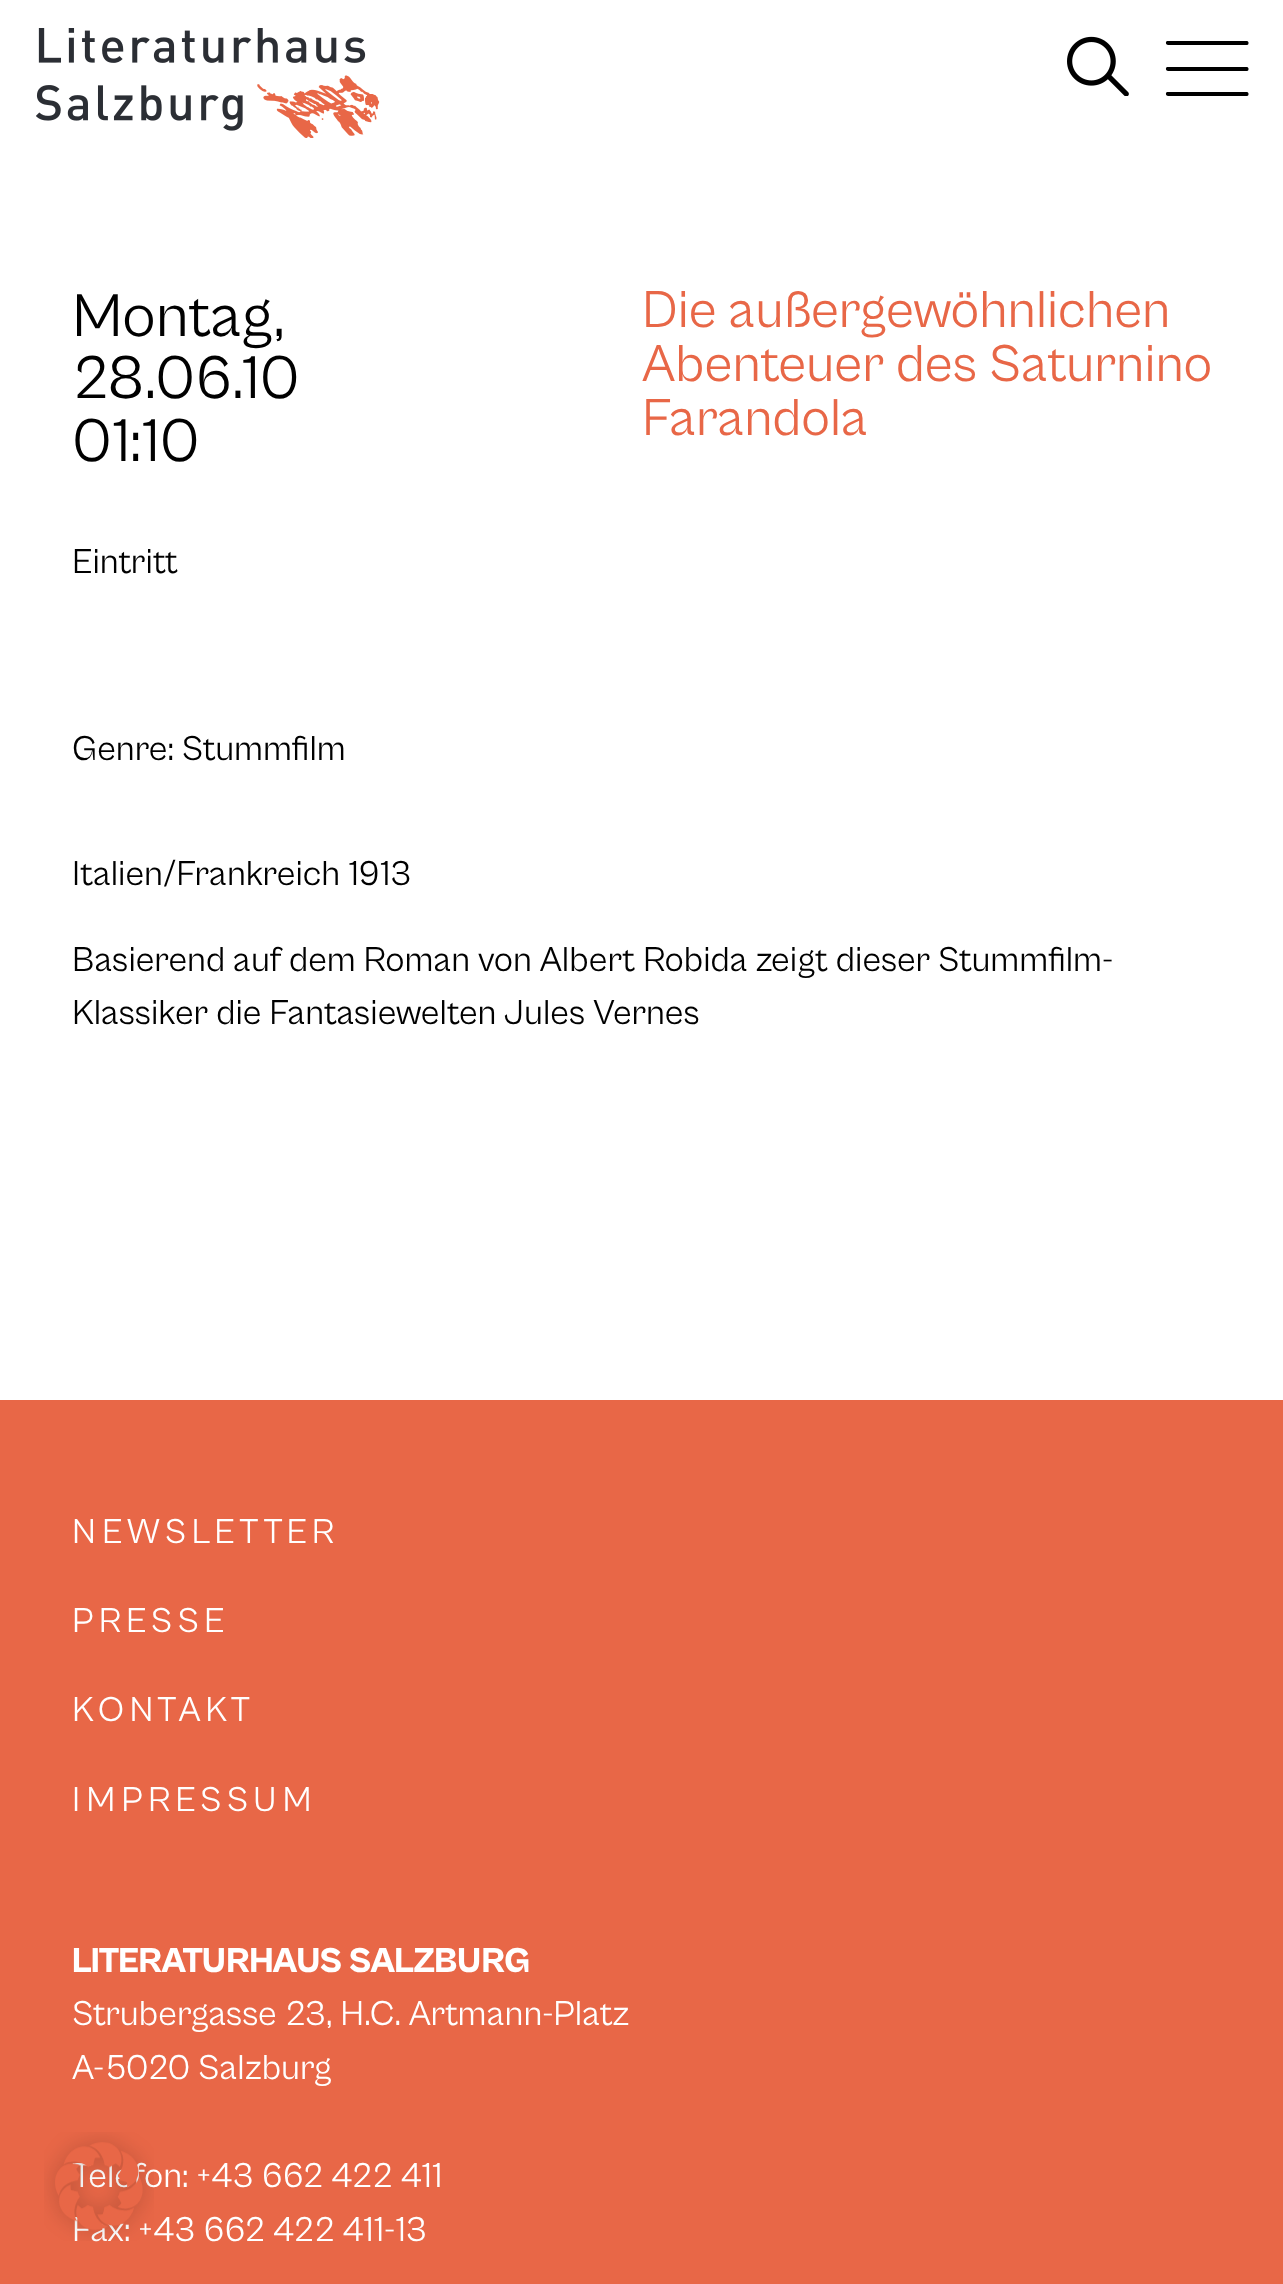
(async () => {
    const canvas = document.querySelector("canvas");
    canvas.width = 1283;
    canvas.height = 2284;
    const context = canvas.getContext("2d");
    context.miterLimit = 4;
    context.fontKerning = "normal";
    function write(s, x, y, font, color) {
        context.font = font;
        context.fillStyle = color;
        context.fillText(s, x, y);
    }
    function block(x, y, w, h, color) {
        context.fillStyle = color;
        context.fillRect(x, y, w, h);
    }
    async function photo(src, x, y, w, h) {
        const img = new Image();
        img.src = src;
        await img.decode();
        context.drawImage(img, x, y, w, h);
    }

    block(0, 0, 1283, 2284, "rgb(255, 255, 255)");
    await photo("media/1.png", 36, 28, 344, 110);
    await photo("media/2.png", 1067, 36, 62, 60);
    context.fillStyle = "rgb(0, 0, 0)";
    context.beginPath();
    context.moveTo(1247, 45);
    context.lineTo(1168, 45);
    context.bezierCurveTo(1166, 45, 1165, 42, 1167, 41);
    context.lineTo(1247, 41);
    context.bezierCurveTo(1249, 41, 1249, 45, 1247, 45);
    context.closePath();
    context.fill();
    context.beginPath();
    context.moveTo(1247, 71);
    context.lineTo(1168, 71);
    context.bezierCurveTo(1166, 71, 1165, 68, 1167, 67);
    context.lineTo(1247, 67);
    context.bezierCurveTo(1249, 67, 1249, 71, 1247, 71);
    context.closePath();
    context.fill();
    context.beginPath();
    context.moveTo(1247, 96);
    context.lineTo(1168, 96);
    context.bezierCurveTo(1166, 96, 1165, 93, 1167, 92);
    context.lineTo(1247, 92);
    context.bezierCurveTo(1249, 92, 1249, 96, 1247, 96);
    context.closePath();
    context.fill();
    write("Montag,", 72, 336, "62.5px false", "rgb(0, 0, 0)");
    write("28.06.10", 72, 398, "62.5px false", "rgb(0, 0, 0)");
    write("01:10", 72, 461, "62.5px false", "rgb(0, 0, 0)");
    write("Die außergewöhnlichen", 642, 327, "53.6px false", "rgb(232, 103, 71)");
    write("Abenteuer des Saturnino", 642, 381, "53.6px false", "rgb(232, 103, 71)");
    write("Farandola", 642, 435, "53.6px false", "rgb(232, 103, 71)");
    write("Eintritt", 72, 573, "35.75px false", "rgb(0, 0, 0)");
    write("Genre: Stummfilm", 72, 760, "35.75px false", "rgb(0, 0, 0)");
    write("Italien/Frankreich 1913", 72, 885, "35.75px false", "rgb(0, 0, 0)");
    write("Basierend auf dem Roman von Albert Robida zeigt dieser Stummfilm-", 72, 971, "35.75px false", "rgb(0, 0, 0)");
    write("Klassiker die Fantasiewelten Jules Vernes", 72, 1024, "35.75px false", "rgb(0, 0, 0)");
    block(0, 1400, 1283, 884, "rgb(232, 103, 71)");
    context.letterSpacing = "5.5px";
    write("NEWSLETTER", 72, 1543, "35.75px false", "rgb(255, 255, 255)");
    write("PRESSE", 72, 1632, "35.75px false", "rgb(255, 255, 255)");
    write("KONTAKT", 72, 1721, "35.75px false", "rgb(255, 255, 255)");
    write("IMPRESSUM", 72, 1811, "35.75px false", "rgb(255, 255, 255)");
    context.letterSpacing = "0px";
    write("LITERATURHAUS SALZBURG", 72, 1972, "800 35.75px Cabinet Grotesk", "rgb(255, 255, 255)");
    write("Strubergasse 23, H.C. Artmann-Platz", 72, 2025, "35.75px false", "rgb(255, 255, 255)");
    write("A-5020 Salzburg", 72, 2079, "35.75px false", "rgb(255, 255, 255)");
    write("Telefon: +43 662 422 411", 72, 2187, "35.75px false", "rgb(255, 255, 255)");
    write("Fax: +43 662 422 411-13", 72, 2241, "35.75px false", "rgb(255, 255, 255)");
    await photo("media/3.png", 44, 2132, 110, 109);
})();
